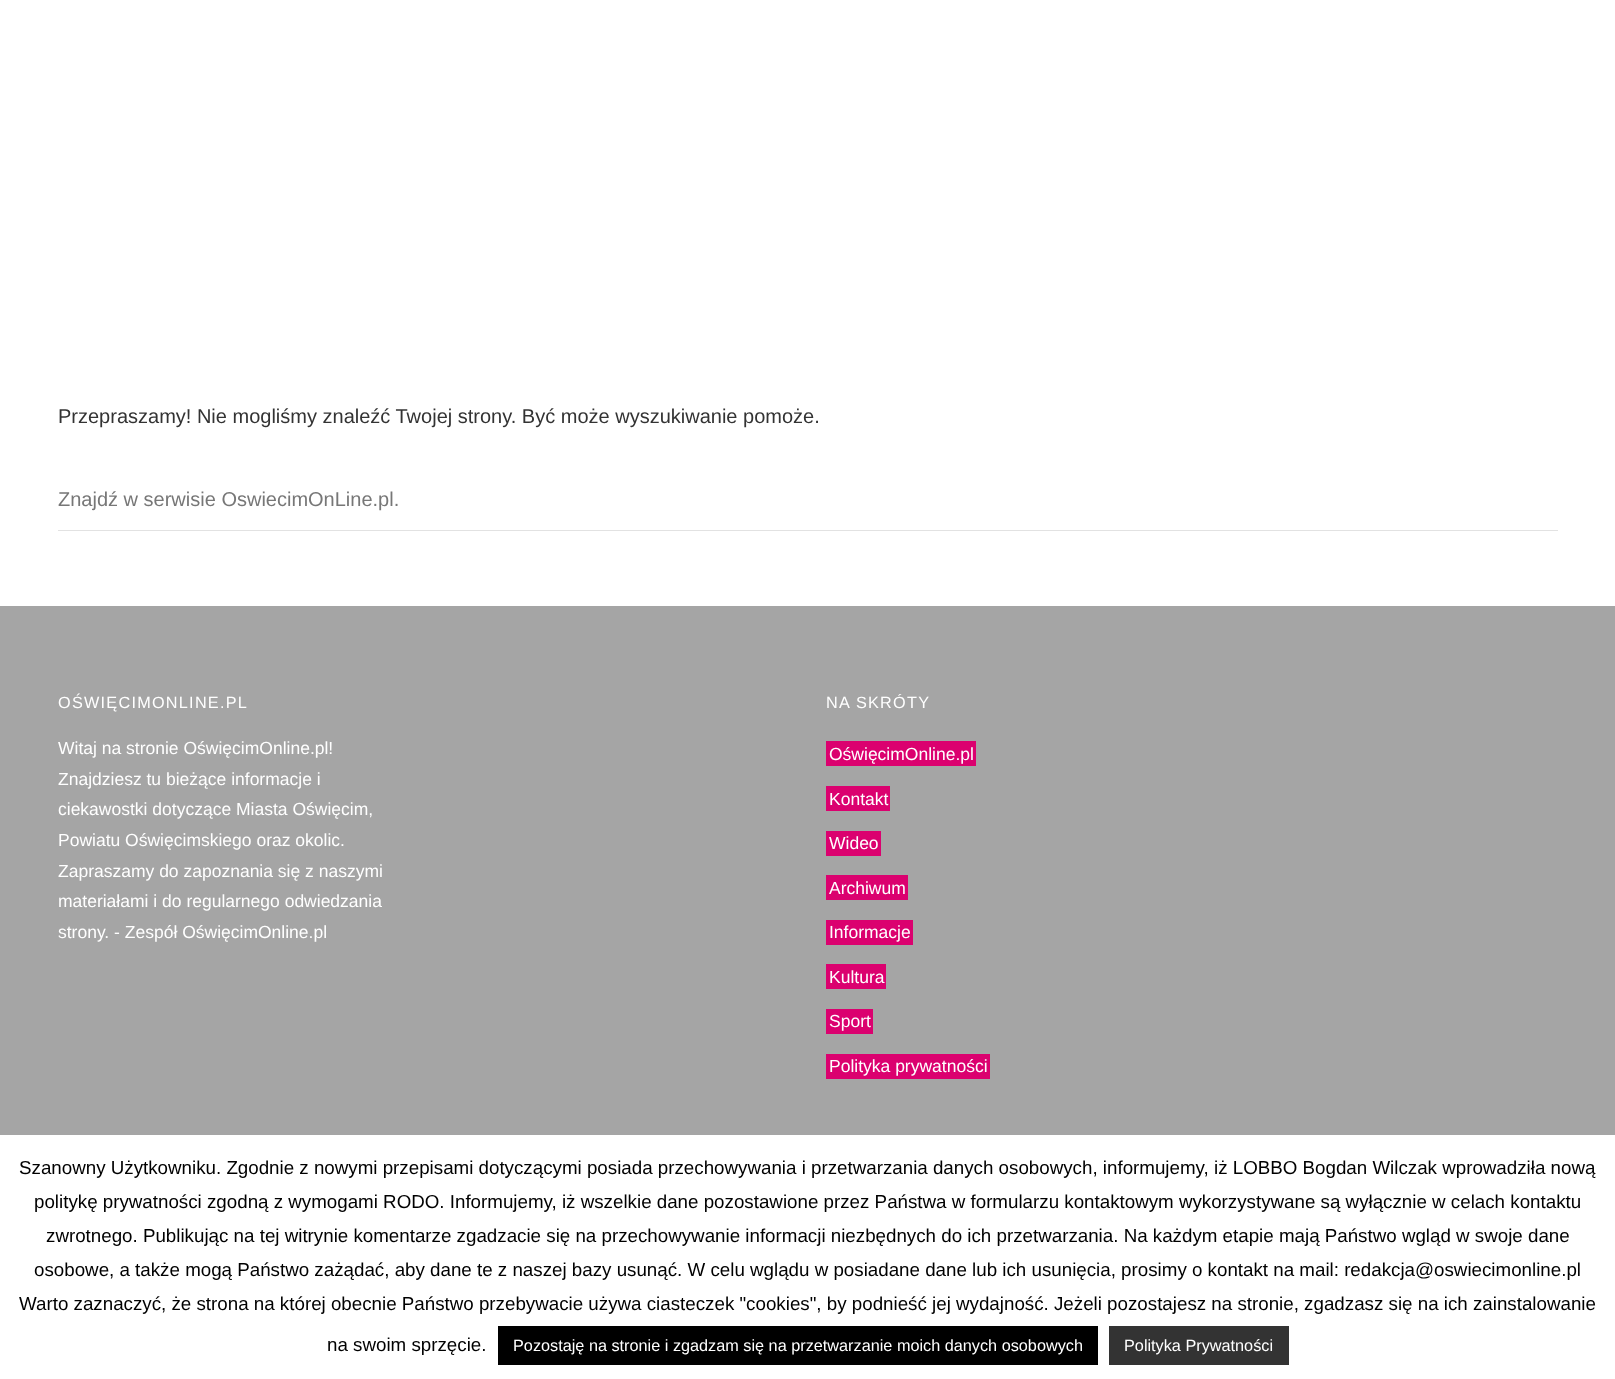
(async () => {
    const canvas = document.querySelector("canvas");
    canvas.width = 1615;
    canvas.height = 1379;
    const context = canvas.getContext("2d");
    context.miterLimit = 4;
    context.fontKerning = "normal";
    function write(s, x, y, font, color) {
        context.font = font;
        context.fillStyle = color;
        context.fillText(s, x, y);
    }
    function block(x, y, w, h, color) {
        context.fillStyle = color;
        context.fillRect(x, y, w, h);
    }

    block(0, 0, 1615, 1379, "rgb(255, 255, 255)");
    write("Przepraszamy! Nie mogliśmy znaleźć Twojej strony. Być może wyszukiwanie pomoże.", 58, 423, "20px Liberation Sans", "rgb(51, 51, 51)");
    block(58, 530, 1500, 1, "rgb(226, 226, 226)");
    write("Znajdź w serwisie OswiecimOnLine.pl.", 58, 506, "20px Liberation Sans", "rgb(119, 119, 119)");
    block(0, 606, 1615, 529, "rgb(165, 165, 165)");
    context.letterSpacing = "1.25px";
    write("OŚWIĘCIMONLINE.PL", 58, 708, "16.25px Liberation Sans", "rgb(255, 255, 255)");
    context.letterSpacing = "0px";
    write("Witaj na stronie OświęcimOnline.pl!", 58, 754, "17.5px Liberation Sans", "rgb(255, 255, 255)");
    write("Znajdziesz tu bieżące informacje i", 58, 785, "17.5px Liberation Sans", "rgb(255, 255, 255)");
    write("ciekawostki dotyczące Miasta Oświęcim,", 58, 815, "17.5px Liberation Sans", "rgb(255, 255, 255)");
    write("Powiatu Oświęcimskiego oraz okolic.", 58, 846, "17.5px Liberation Sans", "rgb(255, 255, 255)");
    write("Zapraszamy do zapoznania się z naszymi", 58, 877, "17.5px Liberation Sans", "rgb(255, 255, 255)");
    write("materiałami i do regularnego odwiedzania", 58, 907, "17.5px Liberation Sans", "rgb(255, 255, 255)");
    write("strony. - Zespół OświęcimOnline.pl", 58, 938, "17.5px Liberation Sans", "rgb(255, 255, 255)");
    context.letterSpacing = "1.25px";
    write("NA SKRÓTY", 826, 708, "16.25px Liberation Sans", "rgb(255, 255, 255)");
    block(826, 741, 150, 25, "rgb(219, 1, 111)");
    context.letterSpacing = "0px";
    write("OświęcimOnline.pl", 829, 760, "17.5px Liberation Sans", "rgb(255, 255, 255)");
    block(826, 786, 64, 25, "rgb(219, 1, 111)");
    write("Kontakt", 829, 805, "17.5px Liberation Sans", "rgb(255, 255, 255)");
    block(826, 831, 55, 25, "rgb(219, 1, 111)");
    write("Wideo", 829, 849, "17.5px Liberation Sans", "rgb(255, 255, 255)");
    block(826, 875, 82, 25, "rgb(219, 1, 111)");
    write("Archiwum", 829, 894, "17.5px Liberation Sans", "rgb(255, 255, 255)");
    block(826, 920, 87, 25, "rgb(219, 1, 111)");
    write("Informacje", 829, 938, "17.5px Liberation Sans", "rgb(255, 255, 255)");
    block(826, 964, 60, 25, "rgb(219, 1, 111)");
    write("Kultura", 829, 983, "17.5px Liberation Sans", "rgb(255, 255, 255)");
    block(826, 1009, 47, 25, "rgb(219, 1, 111)");
    write("Sport", 829, 1027, "17.5px Liberation Sans", "rgb(255, 255, 255)");
    block(826, 1054, 164, 25, "rgb(219, 1, 111)");
    write("Polityka prywatności", 829, 1072, "17.5px Liberation Sans", "rgb(255, 255, 255)");
    write("Szanowny Użytkowniku. Zgodnie z nowymi przepisami dotyczącymi posiada przechowywania i przetwarzania danych osobowych, informujemy, iż LOBBO Bogdan Wilczak wprowadziła nową", 19, 1174, "18.75px Liberation Sans", "rgb(0, 0, 0)");
    write("politykę prywatności zgodną z wymogami RODO. Informujemy, iż wszelkie dane pozostawione przez Państwa w formularzu kontaktowym wykorzystywane są wyłącznie w celach kontaktu", 34, 1208, "18.75px Liberation Sans", "rgb(0, 0, 0)");
    write("zwrotnego. Publikując na tej witrynie komentarze zgadzacie się na przechowywanie informacji niezbędnych do ich przetwarzania. Na każdym etapie mają Państwo wgląd w swoje dane", 46, 1242, "18.75px Liberation Sans", "rgb(0, 0, 0)");
    write("osobowe, a także mogą Państwo zażądać, aby dane te z naszej bazy usunąć. W celu wglądu w posiadane dane lub ich usunięcia, prosimy o kontakt na mail: redakcja@oswiecimonline.pl", 34, 1276, "18.75px Liberation Sans", "rgb(0, 0, 0)");
    write("Warto zaznaczyć, że strona na której obecnie Państwo przebywacie używa ciasteczek \"cookies\", by podnieść jej wydajność. Jeżeli pozostajesz na stronie, zgadzasz się na ich zainstalowanie", 19, 1310, "18.75px Liberation Sans", "rgb(0, 0, 0)");
    write("na swoim sprzęcie.", 327, 1351, "18.75px Liberation Sans", "rgb(0, 0, 0)");
    block(498, 1326, 600, 39, "rgb(0, 0, 0)");
    write("Pozostaję na stronie i zgadzam się na przetwarzanie moich danych osobowych", 513, 1351, "16.25px Liberation Sans", "rgb(255, 255, 255)");
    block(1109, 1326, 180, 39, "rgb(51, 51, 51)");
    write("Polityka Prywatności", 1124, 1351, "16.25px Liberation Sans", "rgb(255, 255, 255)");
})();
